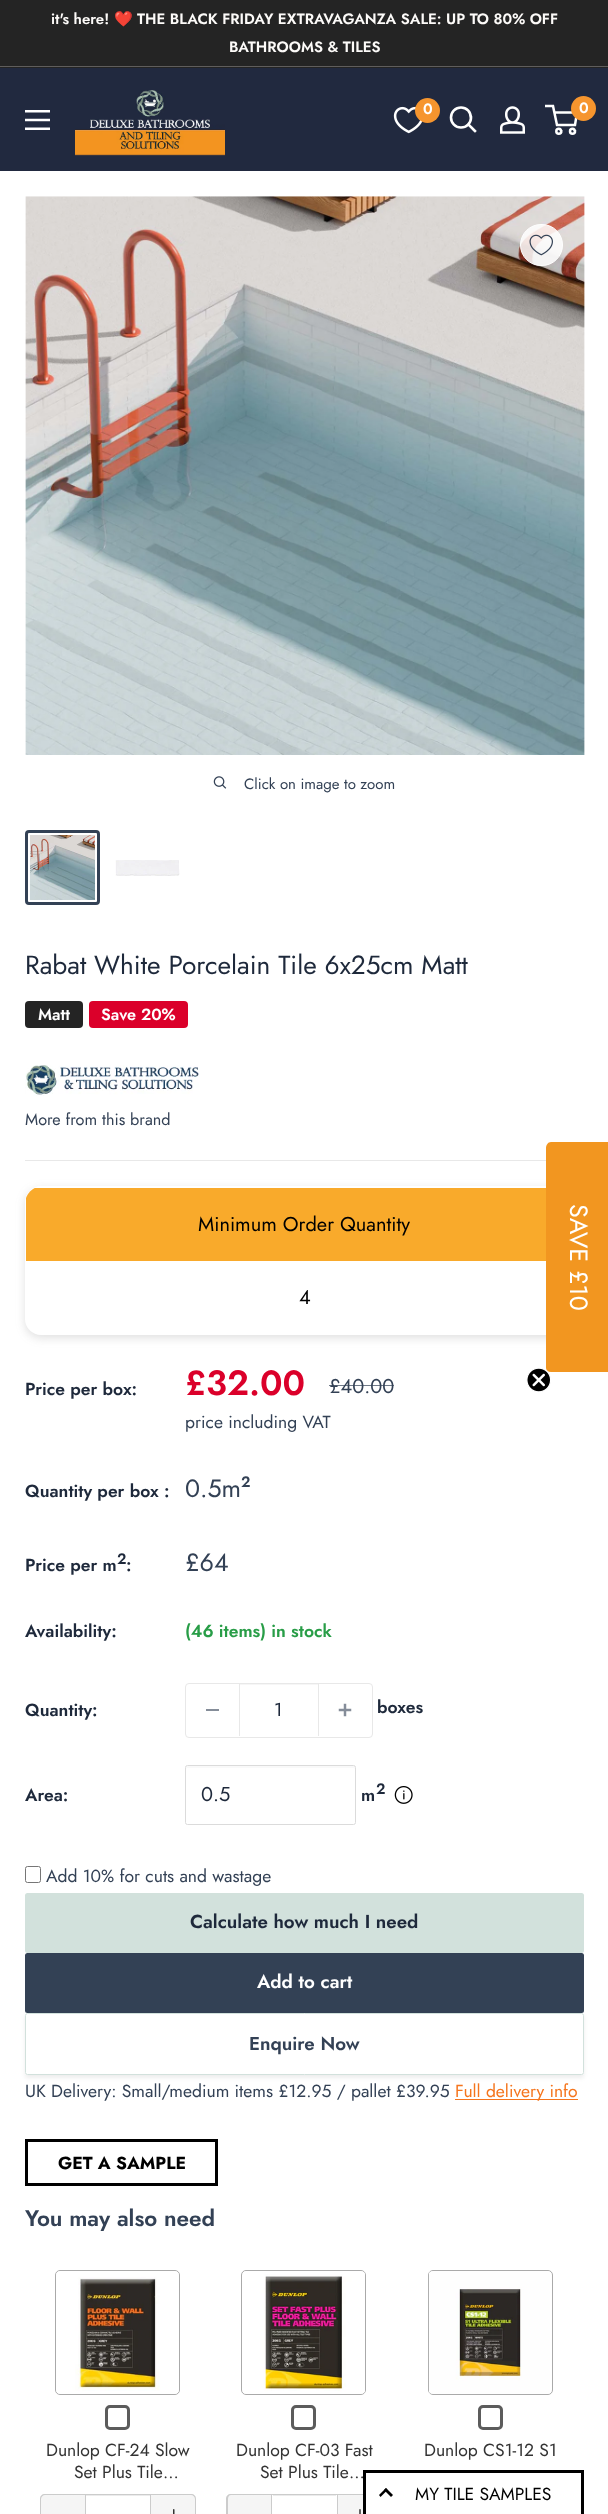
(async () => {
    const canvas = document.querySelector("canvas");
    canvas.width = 608;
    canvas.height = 2514;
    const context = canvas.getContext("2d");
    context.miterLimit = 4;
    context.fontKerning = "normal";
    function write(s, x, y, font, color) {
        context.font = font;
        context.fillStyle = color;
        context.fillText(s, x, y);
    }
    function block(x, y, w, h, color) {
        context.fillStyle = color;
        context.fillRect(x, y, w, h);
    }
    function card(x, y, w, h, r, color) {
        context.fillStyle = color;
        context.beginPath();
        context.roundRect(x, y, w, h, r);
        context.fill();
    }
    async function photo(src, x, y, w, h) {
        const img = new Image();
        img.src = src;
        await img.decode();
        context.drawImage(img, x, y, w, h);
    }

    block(0, 0, 608, 2514, "rgb(36, 36, 36)");
    block(0, 66, 608, 1, "rgb(95, 93, 92)");
    write("it's here!", 51, 24, "600 15px Jost", "rgb(253, 251, 249)");
    write("❤️", 114, 24, "bold 15px Noto Color Emoji", "rgb(253, 251, 249)");
    write("THE BLACK FRIDAY EXTRAVAGANZA SALE: UP TO 80% OFF", 137, 24, "600 15px Jost", "rgb(253, 251, 249)");
    write("BATHROOMS & TILES", 229, 52, "600 15px Jost", "rgb(253, 251, 249)");
    block(0, 68, 608, 103, "rgb(33, 41, 63)");
    await photo("media/1.png", 75, 90, 150, 66);
    await photo("media/2.png", 393, 106, 30, 28);
    context.fillStyle = "rgb(246, 149, 46)";
    context.beginPath();
    context.arc(427.5, 110.5, 12.5, 0, Math.PI * 2);
    context.fill();
    write("0", 423, 114, "600 15px Jost", "rgb(255, 255, 255)");
    context.beginPath();
    context.moveTo(475, 131);
    context.lineTo(468.5, 124.5);
    context.strokeStyle = "rgb(255, 255, 255)";
    context.lineWidth = 2.6;
    context.lineCap = "square";
    context.stroke();
    context.beginPath();
    context.arc(461, 117.5, 10, 0, Math.PI * 2);
    context.stroke();
    await photo("media/3.png", 500, 106, 25, 28);
    context.beginPath();
    context.arc(558.8, 131.2, 2.5, 0, Math.PI * 2);
    context.lineWidth = 2.5;
    context.stroke();
    context.beginPath();
    context.arc(572.5, 131.2, 2.5, 0, Math.PI * 2);
    context.stroke();
    context.beginPath();
    context.moveTo(554, 112.5);
    context.lineTo(577, 112.5);
    context.lineTo(575, 125);
    context.lineTo(557, 125);
    context.lineTo(553, 106);
    context.lineTo(545, 106);
    context.lineCap = "butt";
    context.stroke();
    context.fillStyle = "rgb(246, 149, 46)";
    context.beginPath();
    context.arc(583.5, 108.5, 12.5, 0, Math.PI * 2);
    context.fill();
    write("0", 579, 113, "600 15px Jost", "rgb(255, 255, 255)");
    await photo("media/4.png", 25, 110, 25, 20);
    block(0, 171, 608, 774, "rgb(255, 255, 255)");
    await photo("media/6.png", 25, 196, 560, 559);
    context.fillStyle = "rgba(255, 255, 255, 0.85)";
    context.beginPath();
    context.roundRect(520.5, 224.5, 42, 41, 20.5);
    context.fill();
    context.lineWidth = 1;
    context.stroke();
    await photo("media/5.png", 529, 234, 24, 22);
    await photo("media/7.png", 213, 776, 14, 13);
    write("Click on image to zoom", 244, 789, "15px Jost", "rgb(51, 65, 85)");
    context.beginPath();
    context.roundRect(26.5, 831.5, 72, 72, 2.5);
    context.strokeStyle = "rgb(51, 65, 85)";
    context.lineWidth = 3;
    context.stroke();
    await photo("media/8.png", 30, 835, 65, 65);
    await photo("media/9.png", 115, 860, 65, 16);
    context.fillStyle = "rgb(255, 255, 255)";
    context.beginPath();
    context.moveTo(0, 945);
    context.lineTo(0, 946);
    context.lineTo(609, 946);
    context.lineTo(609, 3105);
    context.lineTo(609, 945);
    context.closePath();
    context.fill();
    block(0, 946, 608, 1568, "rgb(255, 255, 255)");
    write("Rabat White Porcelain Tile 6x25cm Matt", 25, 974, "26.25px Jost", "rgb(30, 41, 59)");
    card(25, 1001, 58, 27, 4, "rgb(36, 36, 36)");
    write("Matt", 38, 1020, "600 16.25px Jost", "rgb(255, 255, 255)");
    card(89, 1001, 99, 27, 4, "rgb(219, 0, 42)");
    write("Save 20%", 101, 1020, "600 16.25px Jost", "rgb(255, 255, 255)");
    await photo("media/10.png", 25, 1065, 174, 31);
    write("More from this brand", 25, 1125, "16.25px Jost", "rgb(51, 65, 85)");
    block(25, 1160, 521, 1, "rgb(232, 232, 232)");
    context.fillStyle = "rgba(99, 99, 99, 0.2)";
    context.filter = "blur(5px)";
    context.beginPath();
    context.roundRect(25, 1189, 559, 149, 16);
    context.fill();
    context.filter = "none";
    card(25, 1186, 559, 149, 16, "rgb(255, 255, 255)");
    context.save();
    context.beginPath();
    context.roundRect(25, 1186, 559, 149, 18);
    context.clip();
    block(26, 1188, 520, 73, "rgb(249, 170, 43)");
    context.restore();
    write("Minimum Order Quantity", 198, 1231, "20px Jost", "rgb(0, 0, 0)");
    write("4", 299, 1304, "20px Jost", "rgb(0, 0, 0)");
    write("Price per box:", 25, 1395, "600 17.5px Jost", "rgb(30, 41, 59)");
    write("£32.00", 185, 1395, "600 35px Jost", "rgb(219, 0, 42)");
    write("£40.00", 329, 1393, "20px Jost", "rgb(51, 65, 85)");
    block(329, 1385, 65, 1, "rgba(51, 65, 85, 0.7)");
    write("price including VAT", 185, 1428, "17.5px Jost", "rgb(51, 65, 85)");
    write("Quantity per box :", 25, 1497, "600 17.5px Jost", "rgb(30, 41, 59)");
    write("0.5m", 185, 1497, "25px Jost", "rgb(51, 65, 85)");
    write("2", 241, 1487, "600 15px Jost", "rgb(51, 65, 85)");
    write("Price per m", 25, 1571, "600 17.5px Jost", "rgb(30, 41, 59)");
    write("2", 117, 1564, "600 15px Jost", "rgb(30, 41, 59)");
    write(":", 126, 1571, "600 17.5px Jost", "rgb(30, 41, 59)");
    write("£64", 185, 1571, "25px Jost", "rgb(51, 65, 85)");
    write("Availability:", 25, 1637, "600 17.5px Jost", "rgb(30, 41, 59)");
    write("(46 items) in stock", 185, 1637, "600 17.5px Jost", "rgb(40, 157, 71)");
    write("Quantity:", 25, 1716, "600 17.5px Jost", "rgb(30, 41, 59)");
    context.beginPath();
    context.roundRect(185.5, 1683.5, 187, 54, 3.5);
    context.strokeStyle = "rgb(232, 232, 232)";
    context.lineWidth = 1;
    context.stroke();
    block(206, 1709, 13, 2, "rgb(133, 141, 153)");
    block(240, 1684, 78, 1, "rgb(246, 246, 246)");
    block(318, 1684, 1, 52, "rgb(232, 232, 232)");
    block(239, 1684, 1, 52, "rgb(232, 232, 232)");
    write("1", 274, 1716, "18.75px Jost", "rgb(30, 41, 59)");
    await photo("media/11.png", 338, 1703, 14, 14);
    write("boxes", 377, 1713, "600 17.5px Jost", "rgb(30, 41, 59)");
    write("Area:", 25, 1801, "600 17.5px Jost", "rgb(30, 41, 59)");
    context.fillStyle = "rgb(249, 249, 249)";
    context.beginPath();
    context.moveTo(188, 1768);
    context.lineTo(354, 1768);
    context.lineTo(355, 1769);
    context.bezierCurveTo(355, 1768, 355, 1766, 354, 1766);
    context.lineTo(187, 1766);
    context.bezierCurveTo(186, 1766, 186, 1768, 186, 1769);
    context.bezierCurveTo(186, 1768, 187, 1768, 188, 1768);
    context.closePath();
    context.fill();
    context.beginPath();
    context.roundRect(185.5, 1765.5, 170, 59, 2);
    context.strokeStyle = "rgb(219, 219, 219)";
    context.stroke();
    write("0.5", 201, 1801, "20px Jost", "rgb(30, 41, 59)");
    write("m", 361, 1801, "600 17.5px Jost", "rgb(30, 41, 59)");
    write("2", 376, 1794, "600 15px Jost", "rgb(30, 41, 59)");
    await photo("media/12.png", 394, 1786, 19, 18);
    context.beginPath();
    context.roundRect(25.5, 1866.5, 15, 16, 2);
    context.strokeStyle = "rgb(118, 118, 118)";
    context.stroke();
    write("Add 10% for cuts and wastage", 46, 1882, "17.5px Jost", "rgb(51, 65, 85)");
    card(25, 1893, 559, 60, 2.5, "rgb(210, 225, 220)");
    write("Calculate how much I need", 190, 1928, "600 18.75px Jost", "rgb(30, 41, 59)");
    card(25, 1953, 559, 60, 2.5, "rgb(51, 65, 85)");
    write("Add to cart", 257, 1988, "600 18.75px Jost", "rgb(255, 255, 255)");
    context.save();
    context.beginPath();
    context.moveTo(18, 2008);
    context.lineTo(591, 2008);
    context.lineTo(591, 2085);
    context.lineTo(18, 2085);
    context.closePath();
    context.moveTo(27.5, 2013);
    context.lineTo(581.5, 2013);
    context.bezierCurveTo(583, 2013, 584, 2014, 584, 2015.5);
    context.lineTo(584, 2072.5);
    context.bezierCurveTo(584, 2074, 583, 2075, 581.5, 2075);
    context.lineTo(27.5, 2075);
    context.bezierCurveTo(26, 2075, 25, 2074, 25, 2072.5);
    context.lineTo(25, 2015.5);
    context.bezierCurveTo(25, 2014, 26, 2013, 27.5, 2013);
    context.closePath();
    context.clip("evenodd");
    context.fillStyle = "rgba(0, 0, 0, 0.07)";
    context.filter = "blur(2px)";
    context.beginPath();
    context.roundRect(25, 2015, 559, 63, 2.5);
    context.fill();
    context.filter = "none";
    context.restore();
    context.beginPath();
    context.roundRect(25.5, 2013.5, 558, 61, 2);
    context.strokeStyle = "rgb(210, 225, 220)";
    context.stroke();
    write("Enquire Now", 249, 2050, "600 18.75px Jost", "rgb(51, 65, 85)");
    write("UK Delivery: Small/medium items £12.95 / pallet £39.95", 25, 2097, "17.5px Jost", "rgb(51, 65, 85)");
    block(455, 2099, 123, 1, "rgb(245, 117, 29)");
    write("Full delivery info", 455, 2097, "17.5px Jost", "rgb(245, 117, 29)");
    context.strokeStyle = "rgb(0, 0, 0)";
    context.lineWidth = 3;
    context.strokeRect(26.5, 2140.5, 190, 44);
    write("GET A SAMPLE", 58, 2169, "bold 17.5px Jost", "rgb(0, 0, 0)");
    write("You may also need", 25, 2226, "600 22.5px Jost", "rgb(51, 65, 85)");
    context.beginPath();
    context.roundRect(55.5, 2270.5, 124, 124, 4.5);
    context.strokeStyle = "rgb(170, 170, 170)";
    context.lineWidth = 1;
    context.stroke();
    await photo("media/13.png", 56, 2271, 123, 123);
    context.beginPath();
    context.roundRect(106.5, 2406.5, 22, 22, 3.5);
    context.strokeStyle = "rgb(92, 92, 92)";
    context.lineWidth = 3;
    context.stroke();
    write("Dunlop CF-24 Slow", 46, 2456, "17.5px Jost", "rgb(51, 51, 51)");
    write("Set Plus Tile…", 74, 2478, "17.5px Jost", "rgb(51, 51, 51)");
    context.fillStyle = "rgb(245, 245, 245)";
    context.beginPath();
    context.moveTo(45, 2494);
    context.lineTo(85, 2494);
    context.lineTo(85, 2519);
    context.lineTo(45, 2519);
    context.bezierCurveTo(42, 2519, 40, 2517, 40, 2514);
    context.lineTo(40, 2499);
    context.bezierCurveTo(40, 2496, 42, 2494, 45, 2494);
    context.closePath();
    context.fill();
    context.fillStyle = "rgb(204, 204, 204)";
    context.beginPath();
    context.moveTo(45, 2494);
    context.lineTo(85, 2494);
    context.lineTo(85, 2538);
    context.lineTo(45, 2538);
    context.bezierCurveTo(42, 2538, 40, 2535, 40, 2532);
    context.lineTo(40, 2499);
    context.bezierCurveTo(40, 2496, 42, 2494, 45, 2494);
    context.closePath();
    context.moveTo(45, 2495);
    context.lineTo(85, 2495);
    context.lineTo(85, 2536);
    context.lineTo(45, 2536);
    context.bezierCurveTo(43, 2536, 41, 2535, 41, 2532);
    context.lineTo(41, 2499);
    context.bezierCurveTo(41, 2497, 43, 2495, 45, 2495);
    context.closePath();
    context.fill("evenodd");
    block(86, 2495, 64, 1, "rgb(235, 235, 235)");
    context.strokeStyle = "rgb(204, 204, 204)";
    context.lineWidth = 1;
    context.strokeRect(85.5, 2494.5, 65, 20);
    context.fillStyle = "rgb(245, 245, 245)";
    context.beginPath();
    context.moveTo(151, 2494);
    context.lineTo(191, 2494);
    context.bezierCurveTo(194, 2494, 196, 2496, 196, 2499);
    context.lineTo(196, 2514);
    context.bezierCurveTo(196, 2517, 194, 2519, 191, 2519);
    context.lineTo(151, 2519);
    context.closePath();
    context.fill();
    context.fillStyle = "rgb(204, 204, 204)";
    context.beginPath();
    context.moveTo(151, 2494);
    context.lineTo(191, 2494);
    context.bezierCurveTo(194, 2494, 196, 2496, 196, 2499);
    context.lineTo(196, 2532);
    context.bezierCurveTo(196, 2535, 194, 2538, 191, 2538);
    context.lineTo(151, 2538);
    context.closePath();
    context.moveTo(151, 2495);
    context.lineTo(191, 2495);
    context.bezierCurveTo(193, 2495, 195, 2497, 195, 2499);
    context.lineTo(195, 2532);
    context.bezierCurveTo(195, 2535, 193, 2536, 191, 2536);
    context.lineTo(151, 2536);
    context.closePath();
    context.fill("evenodd");
    await photo("media/14.png", 173, 2509, 2, 5);
    context.beginPath();
    context.roundRect(241.5, 2270.5, 124, 124, 4.5);
    context.strokeStyle = "rgb(170, 170, 170)";
    context.stroke();
    await photo("media/15.png", 243, 2271, 122, 123);
    context.beginPath();
    context.roundRect(292.5, 2406.5, 22, 22, 3.5);
    context.strokeStyle = "rgb(92, 92, 92)";
    context.lineWidth = 3;
    context.stroke();
    write("Dunlop CF-03 Fast", 236, 2456, "17.5px Jost", "rgb(51, 51, 51)");
    write("Set Plus Tile…", 260, 2478, "17.5px Jost", "rgb(51, 51, 51)");
    context.fillStyle = "rgb(245, 245, 245)";
    context.beginPath();
    context.moveTo(231, 2494);
    context.lineTo(271, 2494);
    context.lineTo(271, 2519);
    context.lineTo(231, 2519);
    context.bezierCurveTo(228, 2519, 226, 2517, 226, 2514);
    context.lineTo(226, 2499);
    context.bezierCurveTo(226, 2496, 228, 2494, 231, 2494);
    context.closePath();
    context.fill();
    context.fillStyle = "rgb(204, 204, 204)";
    context.beginPath();
    context.moveTo(231, 2494);
    context.lineTo(271, 2494);
    context.lineTo(271, 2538);
    context.lineTo(231, 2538);
    context.bezierCurveTo(228, 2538, 226, 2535, 226, 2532);
    context.lineTo(226, 2499);
    context.bezierCurveTo(226, 2496, 228, 2494, 231, 2494);
    context.closePath();
    context.moveTo(231, 2495);
    context.lineTo(271, 2495);
    context.lineTo(271, 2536);
    context.lineTo(231, 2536);
    context.bezierCurveTo(229, 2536, 228, 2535, 228, 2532);
    context.lineTo(228, 2499);
    context.bezierCurveTo(228, 2497, 229, 2495, 231, 2495);
    context.closePath();
    context.fill("evenodd");
    block(273, 2495, 63, 1, "rgb(235, 235, 235)");
    context.strokeStyle = "rgb(204, 204, 204)";
    context.lineWidth = 1;
    context.strokeRect(271.5, 2494.5, 66, 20);
    block(338, 2495, 25, 19, "rgb(245, 245, 245)");
    context.fillStyle = "rgb(204, 204, 204)";
    context.beginPath();
    context.moveTo(338, 2494);
    context.lineTo(378, 2494);
    context.bezierCurveTo(380, 2494, 382, 2496, 382, 2499);
    context.lineTo(382, 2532);
    context.bezierCurveTo(382, 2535, 380, 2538, 378, 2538);
    context.lineTo(338, 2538);
    context.closePath();
    context.moveTo(338, 2495);
    context.lineTo(378, 2495);
    context.bezierCurveTo(380, 2495, 381, 2497, 381, 2499);
    context.lineTo(381, 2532);
    context.bezierCurveTo(381, 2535, 380, 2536, 378, 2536);
    context.lineTo(338, 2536);
    context.closePath();
    context.fill("evenodd");
    await photo("media/16.png", 359, 2509, 2, 5);
    context.beginPath();
    context.roundRect(428.5, 2270.5, 124, 124, 4.5);
    context.strokeStyle = "rgb(170, 170, 170)";
    context.stroke();
    await photo("media/17.png", 428, 2271, 122, 123);
    context.beginPath();
    context.roundRect(479.5, 2406.5, 22, 22, 3.5);
    context.strokeStyle = "rgb(92, 92, 92)";
    context.lineWidth = 3;
    context.stroke();
    write("Dunlop CS1-12 S1", 424, 2456, "17.5px Jost", "rgb(51, 51, 51)");
    context.fillStyle = "rgb(242, 150, 32)";
    context.beginPath();
    context.moveTo(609, 1142);
    context.lineTo(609, 1372);
    context.lineTo(551, 1372);
    context.bezierCurveTo(548, 1372, 546, 1370, 546, 1368);
    context.lineTo(546, 1148);
    context.bezierCurveTo(546, 1145, 548, 1142, 551, 1142);
    context.closePath();
    context.fill();
    context.font = "25px Jost";
    context.fillStyle = "rgb(255, 255, 255)";
    context.save();
    context.translate(570, 1204);
    context.rotate(90 * Math.PI / 180);
    context.fillText("SAVE", 0, 0);
    context.restore();
    context.save();
    context.translate(570, 1270);
    context.rotate(90 * Math.PI / 180);
    context.fillText("£10", 0, 0);
    context.restore();
    await photo("media/18.png", 526, 1368, 25, 24);
    block(366, 2494, 16, 20, "rgb(255, 255, 255)");
    block(363, 2470, 221, 3, "rgb(0, 0, 0)");
    block(581, 2470, 3, 44, "rgb(0, 0, 0)");
    block(363, 2470, 3, 44, "rgb(0, 0, 0)");
    context.beginPath();
    context.moveTo(386, 2488);
    context.lineTo(393, 2495);
    context.lineTo(391, 2497);
    context.lineTo(384, 2490);
    context.closePath();
    context.fill();
    context.beginPath();
    context.moveTo(386, 2488);
    context.lineTo(387.5, 2490);
    context.lineTo(380.5, 2497);
    context.lineTo(379, 2495);
    context.closePath();
    context.fill();
    write("MY TILE SAMPLES", 415, 2500, "17.5px Jost", "rgb(0, 0, 0)");
})();
